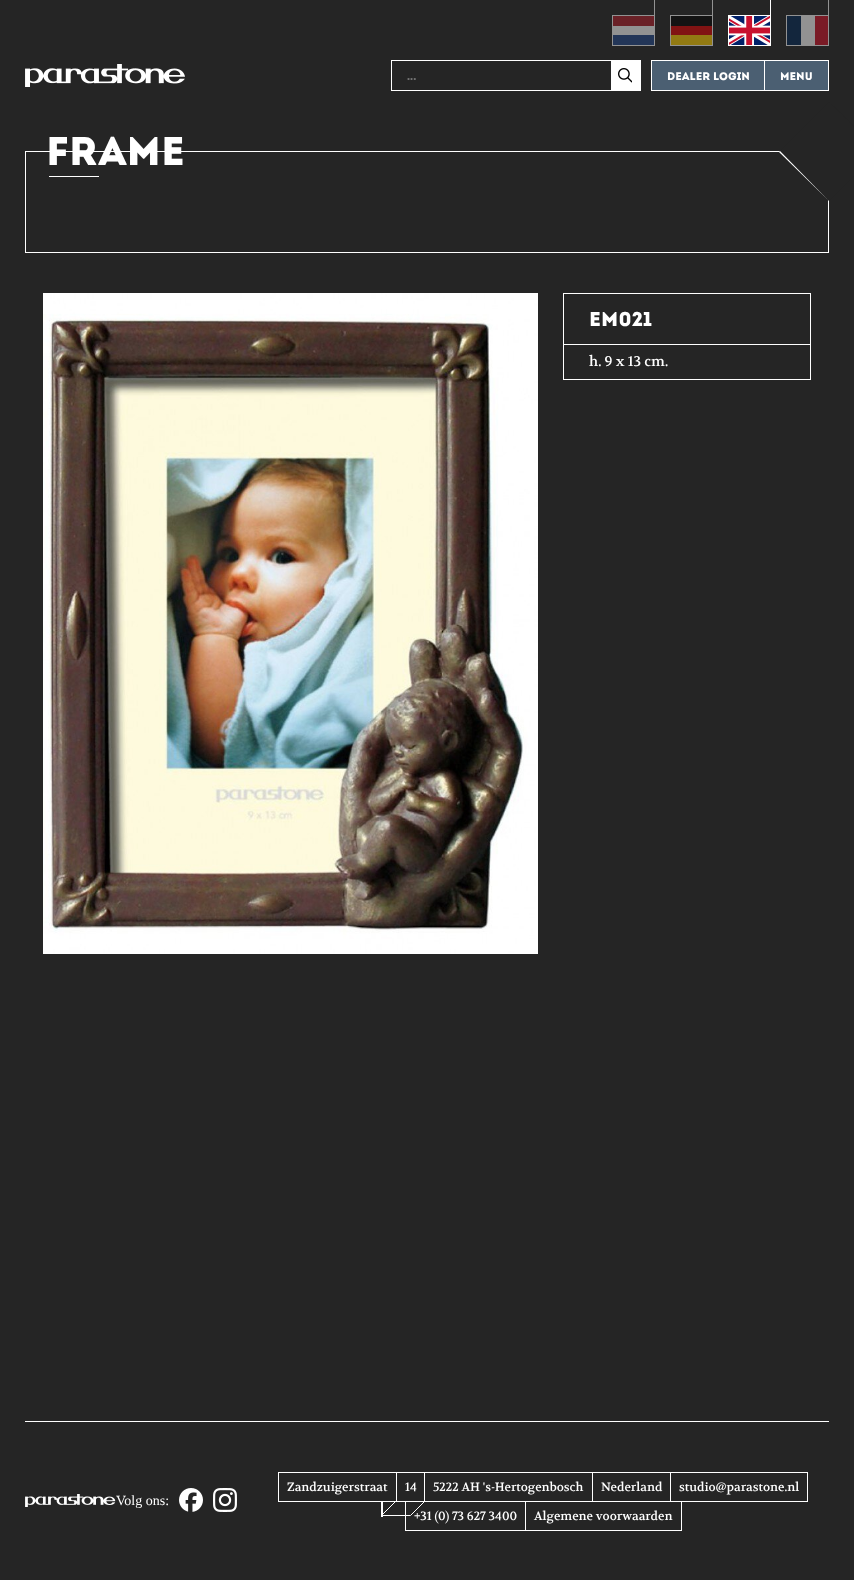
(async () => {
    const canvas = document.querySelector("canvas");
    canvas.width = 854;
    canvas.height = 1580;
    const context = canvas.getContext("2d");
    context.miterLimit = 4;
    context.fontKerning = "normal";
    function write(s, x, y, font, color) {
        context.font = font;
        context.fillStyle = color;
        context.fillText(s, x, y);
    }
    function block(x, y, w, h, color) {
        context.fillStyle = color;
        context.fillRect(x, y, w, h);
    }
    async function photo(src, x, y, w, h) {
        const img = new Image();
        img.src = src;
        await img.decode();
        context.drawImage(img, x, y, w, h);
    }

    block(0, 0, 854, 1580, "rgb(37, 37, 37)");
    block(654, 0, 1, 46, "rgb(146, 146, 146)");
    block(613, 35, 41, 10, "rgb(35, 54, 88)");
    block(613, 26, 41, 9, "rgb(146, 146, 146)");
    block(613, 16, 41, 10, "rgb(106, 33, 39)");
    block(612, 15, 42, 1, "rgb(146, 146, 146)");
    block(612, 45, 42, 1, "rgb(146, 146, 146)");
    block(612, 15, 1, 31, "rgb(146, 146, 146)");
    block(712, 0, 1, 46, "rgb(146, 146, 146)");
    block(671, 16, 41, 10, "rgb(19, 19, 19)");
    block(671, 26, 41, 9, "rgb(129, 19, 19)");
    block(671, 35, 41, 10, "rgb(146, 122, 19)");
    block(670, 15, 42, 1, "rgb(146, 146, 146)");
    block(670, 45, 42, 1, "rgb(146, 146, 146)");
    block(670, 15, 1, 31, "rgb(146, 146, 146)");
    block(770, 0, 1, 46, "rgb(255, 255, 255)");
    await photo("media/1.png", 729, 16, 41, 29);
    block(728, 15, 42, 1, "rgb(255, 255, 255)");
    block(728, 45, 42, 1, "rgb(255, 255, 255)");
    block(728, 15, 1, 31, "rgb(255, 255, 255)");
    block(828, 0, 1, 46, "rgb(146, 146, 146)");
    block(815, 16, 13, 29, "rgb(122, 27, 38)");
    block(801, 16, 14, 29, "rgb(146, 146, 146)");
    block(787, 16, 14, 29, "rgb(19, 38, 61)");
    block(786, 15, 42, 1, "rgb(146, 146, 146)");
    block(786, 45, 42, 1, "rgb(146, 146, 146)");
    block(786, 15, 1, 31, "rgb(146, 146, 146)");
    await photo("media/2.png", 25, 64, 160, 23);
    context.strokeStyle = "rgb(255, 255, 255)";
    context.strokeRect(391.5, 60.5, 249, 30);
    write("...", 407, 80, "11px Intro", "rgb(117, 117, 117)");
    block(611, 61, 29, 29, "rgb(255, 255, 255)");
    await photo("media/3.png", 618, 68, 14, 15);
    context.strokeRect(651.5, 60.5, 177, 30);
    block(652, 61, 112, 29, "rgb(75, 95, 114)");
    write("DEALER LOGIN", 667, 80, "11px Intro", "rgb(255, 255, 255)");
    block(765, 61, 63, 29, "rgb(75, 95, 114)");
    block(764, 61, 1, 29, "rgb(255, 255, 255)");
    write("MENU", 780, 80, "11px Intro", "rgb(255, 255, 255)");
    context.strokeRect(25.5, 151.5, 803, 101);
    write("Frame", 46, 165, "40px Intro", "rgb(255, 255, 255)");
    block(49, 176, 50, 1, "rgb(255, 255, 255)");
    context.fillStyle = "rgb(37, 37, 37)";
    context.beginPath();
    context.moveTo(829, 102);
    context.lineTo(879, 151);
    context.lineTo(829, 201);
    context.lineTo(779, 152);
    context.closePath();
    context.fill();
    context.fillStyle = "rgb(255, 255, 255)";
    context.beginPath();
    context.moveTo(780, 151);
    context.lineTo(829, 201);
    context.lineTo(779, 152);
    context.closePath();
    context.fill();
    await photo("media/4.png", 43, 293, 495, 661);
    context.strokeRect(563.5, 293.5, 247, 86);
    block(564, 344, 246, 1, "rgb(255, 255, 255)");
    write("EM021", 589, 326, "20px Intro", "rgb(255, 255, 255)");
    write("h. 9 x 13 cm.", 589, 366, "14px Volkhov", "rgb(255, 255, 255)");
    block(25, 1421, 804, 1, "rgb(255, 255, 255)");
    await photo("media/5.png", 25, 1494, 91, 13);
    write("Volg ons:", 116, 1505, "14px Liberation Serif", "rgb(255, 255, 255)");
    await photo("media/6.png", 179, 1488, 24, 24);
    await photo("media/7.png", 213, 1488, 24, 24);
    context.strokeRect(278.5, 1472.5, 118, 29);
    write("Zandzuigerstraat", 287, 1491, "12px 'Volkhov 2'", "rgb(255, 255, 255)");
    context.strokeRect(424.5, 1472.5, 168, 29);
    context.strokeRect(405.5, 1501.5, 120, 29);
    context.strokeRect(396.5, 1472.5, 28, 29);
    write("14", 405, 1491, "12px 'Volkhov 2'", "rgb(255, 255, 255)");
    context.beginPath();
    context.moveTo(395.5, 1501.5);
    context.lineTo(424.5, 1501.5);
    context.lineTo(410.5, 1515.5);
    context.lineTo(381.5, 1515.5);
    context.closePath();
    context.stroke();
    block(381, 1502, 2, 15, "rgb(255, 255, 255)");
    write("5222 AH 's-Hertogenbosch", 433, 1491, "12px 'Volkhov 2'", "rgb(255, 255, 255)");
    context.strokeRect(592.5, 1472.5, 78, 29);
    write("Nederland", 601, 1491, "12px 'Volkhov 2'", "rgb(255, 255, 255)");
    context.strokeRect(670.5, 1472.5, 137, 29);
    write("studio@parastone.nl", 679, 1491, "12px 'Volkhov 2'", "rgb(255, 255, 255)");
    write("+31 (0) 73 627 3400", 414, 1520, "12px 'Volkhov 2'", "rgb(255, 255, 255)");
    context.strokeRect(525.5, 1501.5, 156, 29);
    write("Algemene voorwaarden", 534, 1520, "12px 'Volkhov 2'", "rgb(255, 255, 255)");
})();
